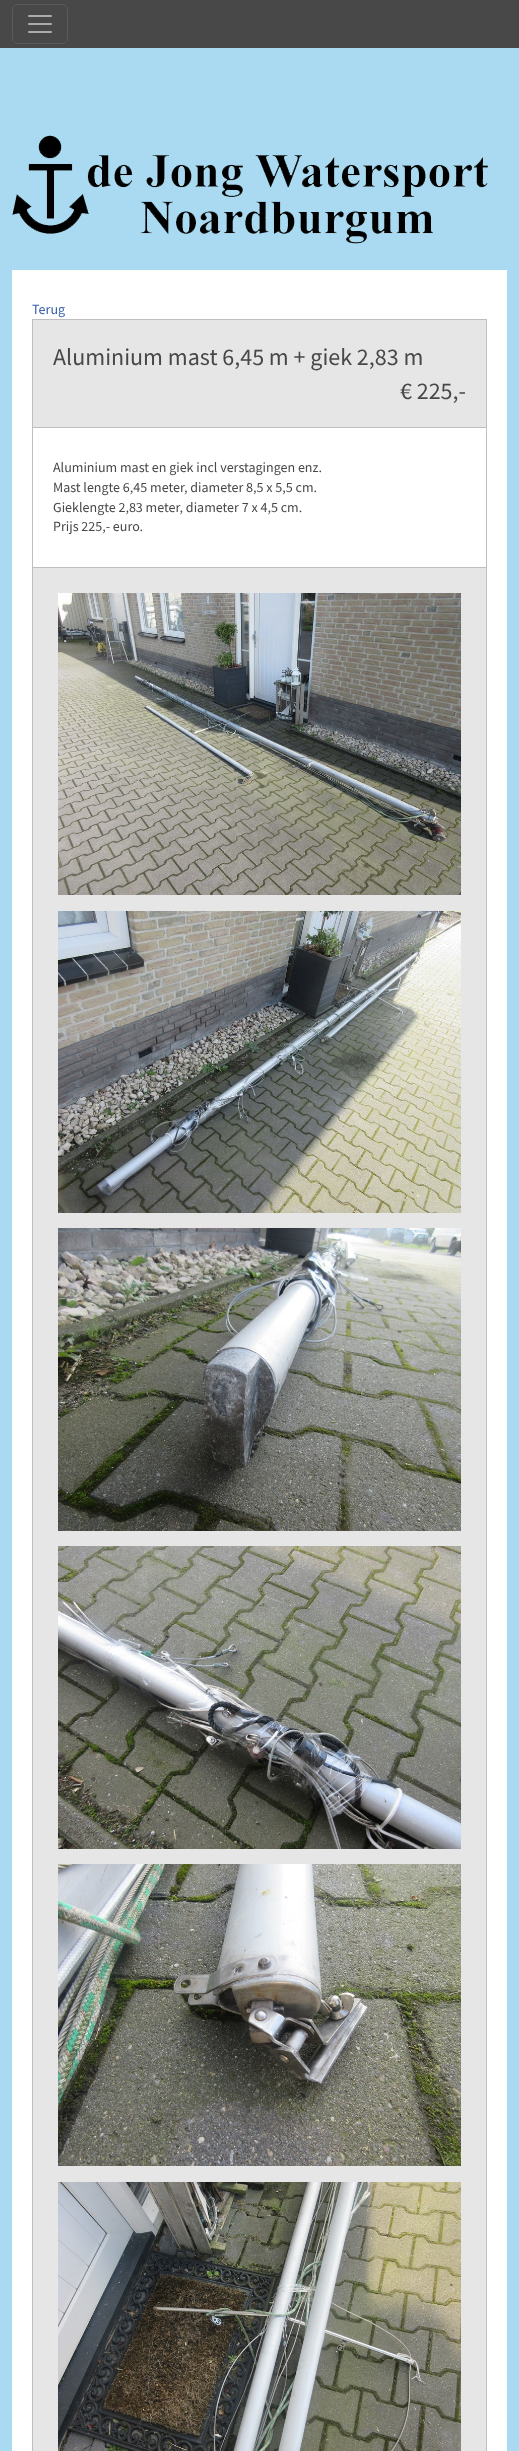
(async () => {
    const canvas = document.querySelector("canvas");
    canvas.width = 519;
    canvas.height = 2451;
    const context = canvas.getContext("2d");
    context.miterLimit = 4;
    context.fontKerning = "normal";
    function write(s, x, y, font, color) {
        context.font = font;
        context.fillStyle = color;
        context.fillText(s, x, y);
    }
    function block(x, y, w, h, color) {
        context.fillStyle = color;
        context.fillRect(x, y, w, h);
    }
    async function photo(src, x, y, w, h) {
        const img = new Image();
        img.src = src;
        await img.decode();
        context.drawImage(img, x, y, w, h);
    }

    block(0, 0, 519, 2451, "rgb(170, 218, 241)");
    block(0, 0, 519, 48, "rgb(72, 72, 72)");
    context.beginPath();
    context.roundRect(12.5, 4.5, 55, 39, 5.5);
    context.strokeStyle = "rgb(90, 90, 90)";
    context.stroke();
    await photo("media/1.png", 28, 15, 24, 18);
    await photo("media/2.png", 12, 135, 476, 109);
    block(12, 270, 495, 2181, "rgb(255, 255, 255)");
    write("Terug", 32, 314, "14px Source Sans Pro", "rgb(56, 96, 170)");
    block(33, 320, 453, 107, "rgb(230, 230, 230)");
    block(32, 319, 455, 1, "rgb(190, 190, 190)");
    block(486, 319, 1, 108, "rgb(190, 190, 190)");
    block(32, 319, 1, 108, "rgb(190, 190, 190)");
    write("Aluminium mast 6,45 m + giek 2,83 m", 53, 365, "24px Source Sans Pro", "rgb(72, 72, 72)");
    write("€ 225,-", 400, 399, "24px Source Sans Pro", "rgb(72, 72, 72)");
    context.strokeStyle = "rgb(190, 190, 190)";
    context.strokeRect(32.5, 427.5, 454, 140);
    write("Aluminium mast en giek incl verstagingen enz.", 53, 472, "14px Source Sans Pro", "rgb(72, 72, 72)");
    write("Mast lengte 6,45 meter, diameter 8,5 x 5,5 cm.", 53, 492, "14px Source Sans Pro", "rgb(72, 72, 72)");
    write("Gieklengte 2,83 meter, diameter 7 x 4,5 cm.", 53, 512, "14px Source Sans Pro", "rgb(72, 72, 72)");
    write("Prijs 225,- euro.", 53, 531, "14px Source Sans Pro", "rgb(72, 72, 72)");
    block(33, 568, 453, 1883, "rgb(230, 230, 230)");
    block(486, 568, 1, 1883, "rgb(190, 190, 190)");
    block(32, 568, 1, 1883, "rgb(190, 190, 190)");
    await photo("media/3.png", 58, 593, 403, 302);
    await photo("media/4.png", 58, 911, 403, 302);
    await photo("media/5.png", 58, 1228, 403, 303);
    await photo("media/6.png", 58, 1546, 403, 303);
    await photo("media/7.png", 58, 1864, 403, 302);
    await photo("media/8.png", 58, 2182, 403, 269);
})();
